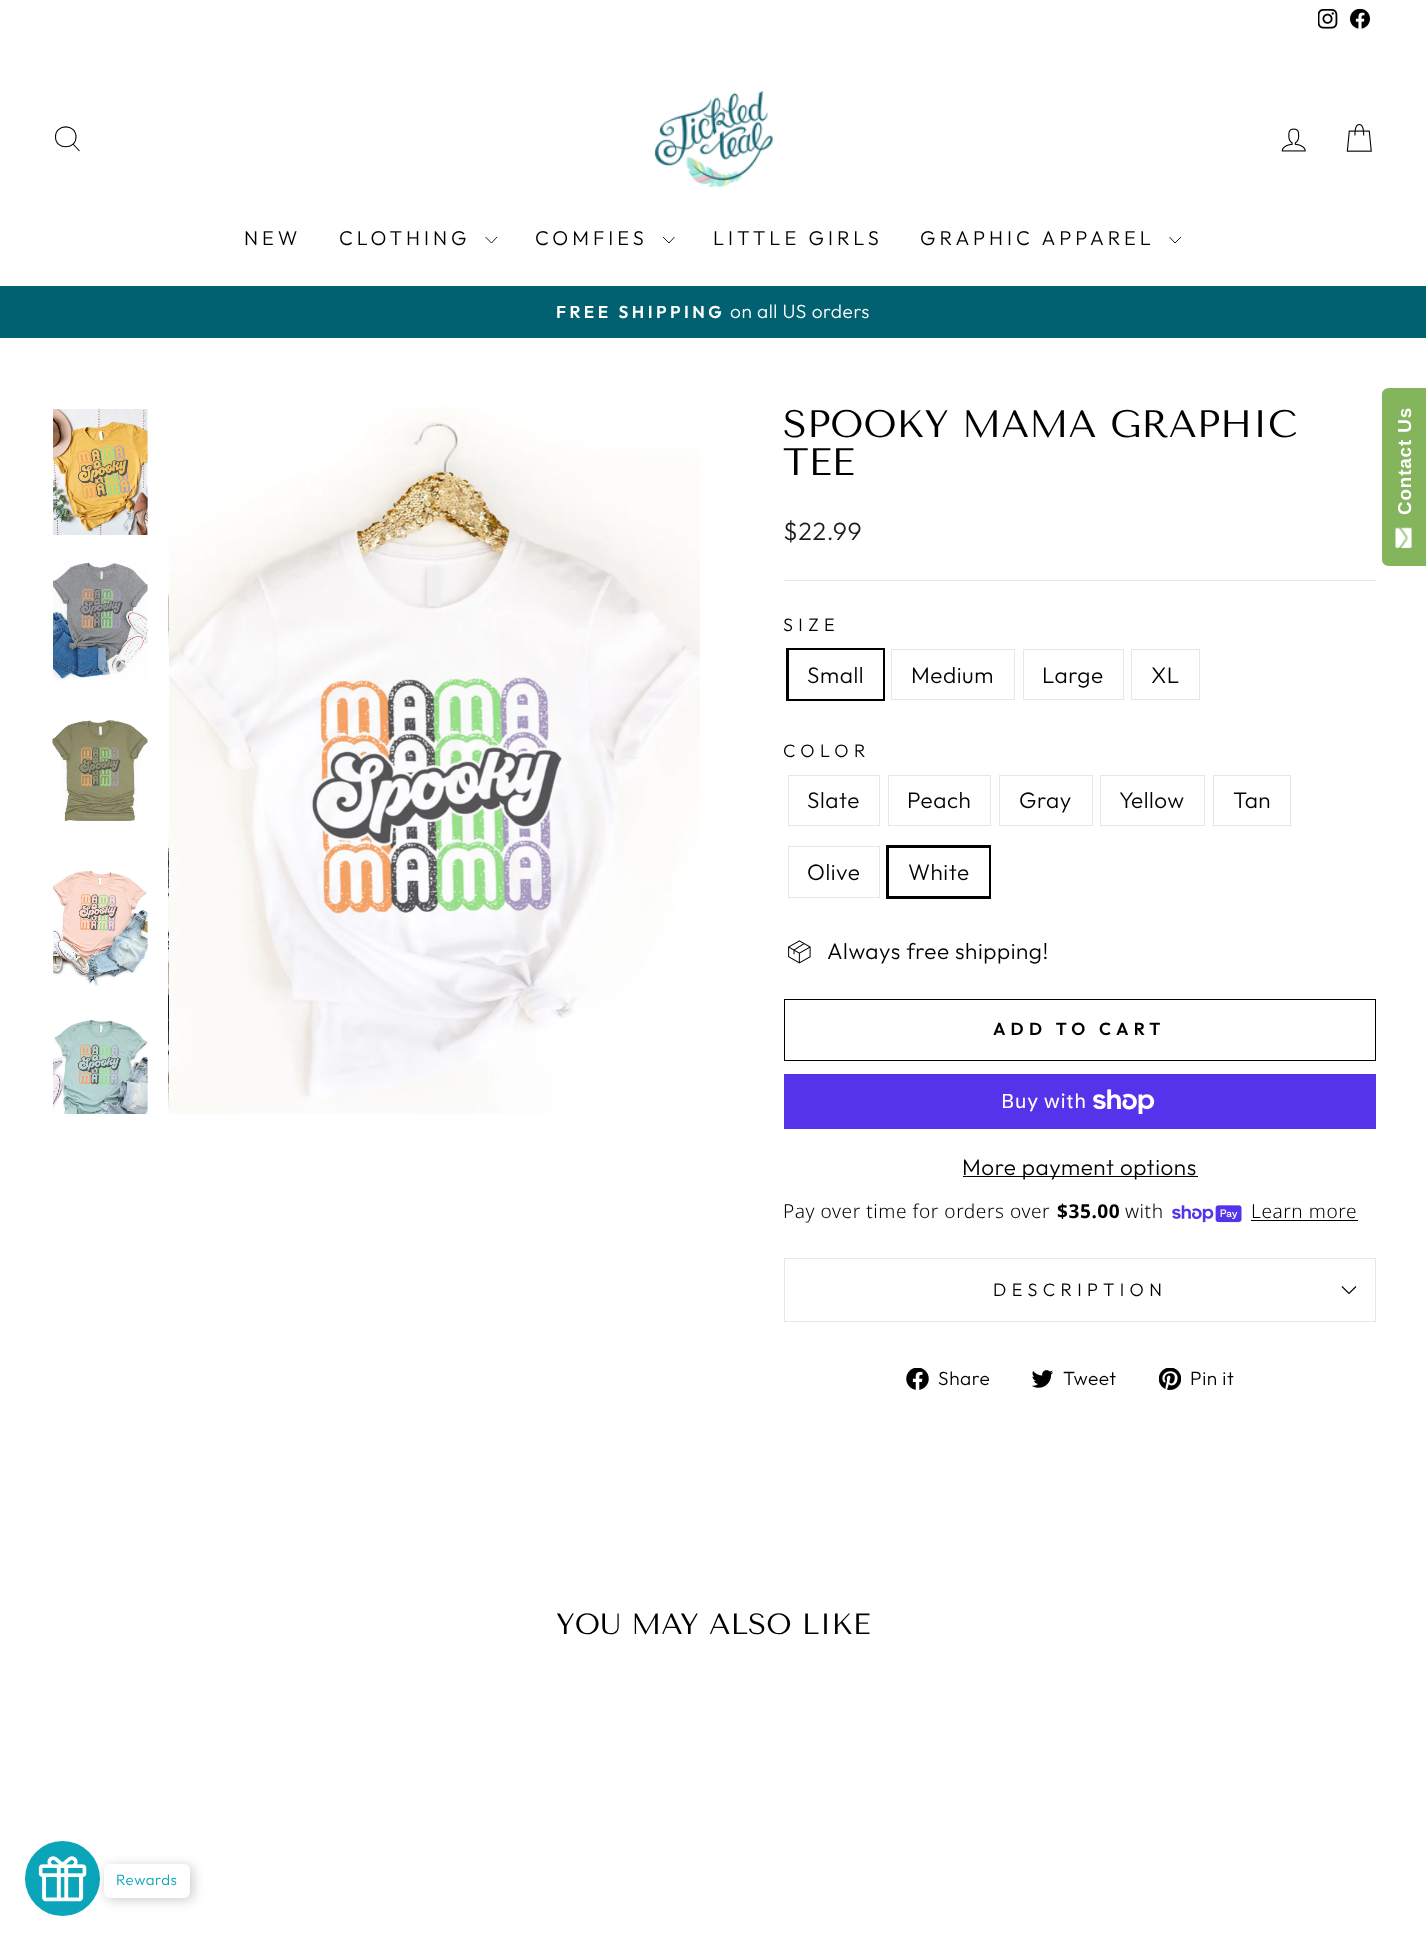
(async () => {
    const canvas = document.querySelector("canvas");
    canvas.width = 1426;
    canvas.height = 1941;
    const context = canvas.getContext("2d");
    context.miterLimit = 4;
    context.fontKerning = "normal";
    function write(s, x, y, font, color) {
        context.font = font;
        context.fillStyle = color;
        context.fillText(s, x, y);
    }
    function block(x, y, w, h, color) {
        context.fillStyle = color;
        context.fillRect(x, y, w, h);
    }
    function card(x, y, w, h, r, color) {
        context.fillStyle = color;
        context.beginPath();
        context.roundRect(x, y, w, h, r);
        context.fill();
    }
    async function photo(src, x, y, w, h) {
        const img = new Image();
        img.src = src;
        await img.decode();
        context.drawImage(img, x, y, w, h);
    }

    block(0, 0, 1426, 1941, "rgb(255, 255, 255)");
    await photo("media/1.png", 1318, 9, 20, 20);
    await photo("media/2.png", 1350, 9, 20, 20);
    context.beginPath();
    context.moveTo(76, 137);
    context.bezierCurveTo(76, 150, 55.5, 150, 55.5, 137);
    context.bezierCurveTo(55.5, 123.5, 76, 123.5, 76, 137);
    context.closePath();
    context.moveTo(79.5, 151);
    context.lineTo(73, 144);
    context.strokeStyle = "rgb(0, 0, 0)";
    context.lineWidth = 1.1;
    context.stroke();
    await photo("media/3.png", 654, 90, 120, 98);
    await photo("media/4.png", 1281, 128, 25, 24);
    await photo("media/5.png", 1346, 124, 26, 28);
    context.letterSpacing = "4px";
    write("NEW", 244, 245, "300 20px Outfit", "rgb(0, 0, 0)");
    write("CLOTHING", 339, 245, "300 20px Outfit", "rgb(0, 0, 0)");
    context.beginPath();
    context.moveTo(485.5, 237);
    context.lineTo(491.5, 243);
    context.lineTo(497, 237);
    context.lineWidth = 0.9;
    context.stroke();
    write("COMFIES", 535, 245, "300 20px Outfit", "rgb(0, 0, 0)");
    context.beginPath();
    context.moveTo(663, 237);
    context.lineTo(669, 243);
    context.lineTo(674.5, 237);
    context.stroke();
    write("LITTLE GIRLS", 713, 245, "300 20px Outfit", "rgb(0, 0, 0)");
    write("GRAPHIC APPAREL", 920, 245, "300 20px Outfit", "rgb(0, 0, 0)");
    context.beginPath();
    context.moveTo(1169.5, 237);
    context.lineTo(1175, 243);
    context.lineTo(1181, 237);
    context.stroke();
    block(0, 286, 1426, 52, "rgb(1, 97, 113)");
    context.letterSpacing = "3.5px";
    write("FREE SHIPPING", 556, 318, "600 17.25px Outfit", "rgb(255, 255, 255)");
    context.letterSpacing = "0.55px";
    write("on all US orders", 730, 318, "300 19.1px Outfit", "rgb(255, 255, 255)");
    await photo("media/6.png", 53, 409, 95, 126);
    await photo("media/7.png", 53, 562, 95, 119);
    await photo("media/8.png", 52, 720, 96, 101);
    await photo("media/9.png", 53, 870, 95, 117);
    await photo("media/10.png", 53, 1020, 95, 94);
    await photo("media/11.png", 168, 594, 1, 517);
    await photo("media/12.png", 169, 407, 531, 707);
    context.letterSpacing = "0px";
    write("SPOOKY MAMA GRAPHIC", 783, 437, "38.25px Tenor Sans", "rgb(0, 0, 0)");
    write("TEE", 783, 475, "38.25px Tenor Sans", "rgb(0, 0, 0)");
    context.letterSpacing = "0.55px";
    write("$22.99", 783, 540, "300 25px Outfit", "rgb(28, 29, 29)");
    block(784, 580, 592, 1, "rgb(232, 232, 225)");
    context.letterSpacing = "5.4px";
    write("SIZE", 783, 631, "300 18px Outfit", "rgb(0, 0, 0)");
    context.lineWidth = 3;
    context.strokeRect(787.5, 649.5, 96, 50);
    block(789, 650, 94, 49, "rgb(255, 255, 255)");
    context.letterSpacing = "0.55px";
    write("Small", 807, 683, "300 22.5px Outfit", "rgb(0, 0, 0)");
    context.strokeStyle = "rgb(232, 232, 225)";
    context.lineWidth = 1;
    context.strokeRect(891.5, 649.5, 123, 50);
    write("Medium", 911, 683, "300 22.5px Outfit", "rgb(0, 0, 0)");
    context.strokeRect(1023.5, 649.5, 100, 50);
    write("Large", 1042, 683, "300 22.5px Outfit", "rgb(0, 0, 0)");
    context.strokeRect(1131.5, 649.5, 68, 50);
    write("XL", 1151, 683, "300 22.5px Outfit", "rgb(0, 0, 0)");
    context.letterSpacing = "5.4px";
    write("COLOR", 783, 757, "300 18px Outfit", "rgb(0, 0, 0)");
    context.strokeRect(788.5, 775.5, 91, 50);
    context.letterSpacing = "0.55px";
    write("Slate", 807, 808, "300 22.5px Outfit", "rgb(0, 0, 0)");
    context.strokeRect(888.5, 775.5, 102, 50);
    write("Peach", 907, 808, "300 22.5px Outfit", "rgb(0, 0, 0)");
    context.strokeRect(999.5, 775.5, 93, 50);
    write("Gray", 1019, 808, "300 22.5px Outfit", "rgb(0, 0, 0)");
    context.strokeRect(1100.5, 775.5, 104, 50);
    write("Yellow", 1119, 808, "300 22.5px Outfit", "rgb(0, 0, 0)");
    context.strokeRect(1213.5, 775.5, 77, 50);
    write("Tan", 1233, 808, "300 22.5px Outfit", "rgb(0, 0, 0)");
    context.strokeRect(788.5, 846.5, 91, 51);
    write("Olive", 807, 880, "300 22.5px Outfit", "rgb(0, 0, 0)");
    context.strokeStyle = "rgb(0, 0, 0)";
    context.lineWidth = 3;
    context.strokeRect(887.5, 846.5, 102, 51);
    block(988, 848, 1, 48, "rgb(255, 255, 255)");
    write("White", 908, 880, "300 22.5px Outfit", "rgb(0, 0, 0)");
    await photo("media/13.png", 788, 940, 23, 24);
    write("Always free shipping!", 827, 959, "300 22.5px Outfit", "rgb(0, 0, 0)");
    context.lineWidth = 1;
    context.strokeRect(784.5, 999.5, 591, 61);
    context.letterSpacing = "5.25px";
    write("ADD TO CART", 993, 1035, "600 17.5px Outfit", "rgb(0, 0, 0)");
    block(784, 1074, 592, 55, "rgb(84, 51, 235)");
    context.letterSpacing = "0.55px";
    write("Buy with", 1001, 1108, "20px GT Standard", "rgb(255, 255, 255)");
    await photo("media/14.png", 1093, 1089, 62, 25);
    block(963, 1176, 235, 1, "rgb(0, 0, 0)");
    write("More payment options", 962, 1175, "300 22.5px Outfit", "rgb(0, 0, 0)");
    write("Pay over time for orders over", 783, 1218, "300 19.1px Noto Sans", "rgb(0, 0, 0)");
    write("$35.00", 1057, 1218, "bold 19.1px Noto Sans", "rgb(0, 0, 0)");
    write("with", 1125, 1218, "300 19.1px Noto Sans", "rgb(0, 0, 0)");
    await photo("media/15.png", 1172, 1205, 70, 18);
    write("Learn more", 1251, 1218, "300 19.1px Noto Sans", "rgb(0, 0, 0)");
    block(1251, 1220, 107, 1, "rgb(0, 0, 0)");
    block(784, 1321, 592, 1, "rgb(232, 232, 225)");
    block(784, 1258, 592, 1, "rgb(232, 232, 225)");
    block(1375, 1258, 1, 63, "rgb(232, 232, 225)");
    block(784, 1258, 1, 63, "rgb(232, 232, 225)");
    context.letterSpacing = "5.4px";
    write("DESCRIPTION", 993, 1296, "300 18px Outfit", "rgb(0, 0, 0)");
    context.beginPath();
    context.moveTo(1342, 1286.5);
    context.lineTo(1349, 1293.5);
    context.lineTo(1356, 1286.5);
    context.lineWidth = 1.1;
    context.stroke();
    await photo("media/16.png", 906, 1368, 23, 22);
    context.letterSpacing = "0.55px";
    write("Share", 938, 1385, "300 19.1px Outfit", "rgb(0, 0, 0)");
    await photo("media/17.png", 1031, 1370, 23, 18);
    write("Tweet", 1063, 1385, "300 19.1px Outfit", "rgb(0, 0, 0)");
    await photo("media/18.png", 1159, 1368, 22, 22);
    write("Pin it", 1190, 1385, "300 19.1px Outfit", "rgb(0, 0, 0)");
    context.letterSpacing = "0px";
    write("YOU MAY ALSO LIKE", 556, 1634, "29.25px Tenor Sans", "rgb(0, 0, 0)");
    context.fillStyle = "rgb(132, 180, 91)";
    context.beginPath();
    context.moveTo(1382, 560);
    context.lineTo(1382, 394);
    context.bezierCurveTo(1382, 391, 1385, 388, 1389, 388);
    context.lineTo(1426, 388);
    context.lineTo(1426, 566);
    context.lineTo(1389, 566);
    context.bezierCurveTo(1385, 566, 1382, 563, 1382, 560);
    context.closePath();
    context.fill();
    context.letterSpacing = "0.9px";
    context.font = "bold 18.75px Liberation Sans";
    context.fillStyle = "rgb(255, 255, 255)";
    context.save();
    context.translate(1411, 515);
    context.rotate(-90 * Math.PI / 180);
    context.fillText("Contact Us", 0, 0);
    context.restore();
    await photo("media/19.png", 1395, 527, 17, 21);
    context.fillStyle = "rgb(11, 165, 186)";
    context.beginPath();
    context.arc(62.5, 1878.5, 37.5, 0, Math.PI * 2);
    context.fill();
    await photo("media/20.png", 38, 1856, 49, 46);
    context.fillStyle = "rgba(0, 0, 0, 0.2)";
    context.filter = "blur(6px)";
    context.beginPath();
    context.roundRect(106, 1866, 87, 34, 6);
    context.fill();
    context.filter = "none";
    card(104, 1864, 86, 34, 6, "rgb(255, 255, 255)");
    context.letterSpacing = "0.55px";
    write("Rewards", 116, 1885, "300 15px Outfit", "rgb(11, 165, 186)");
})();
